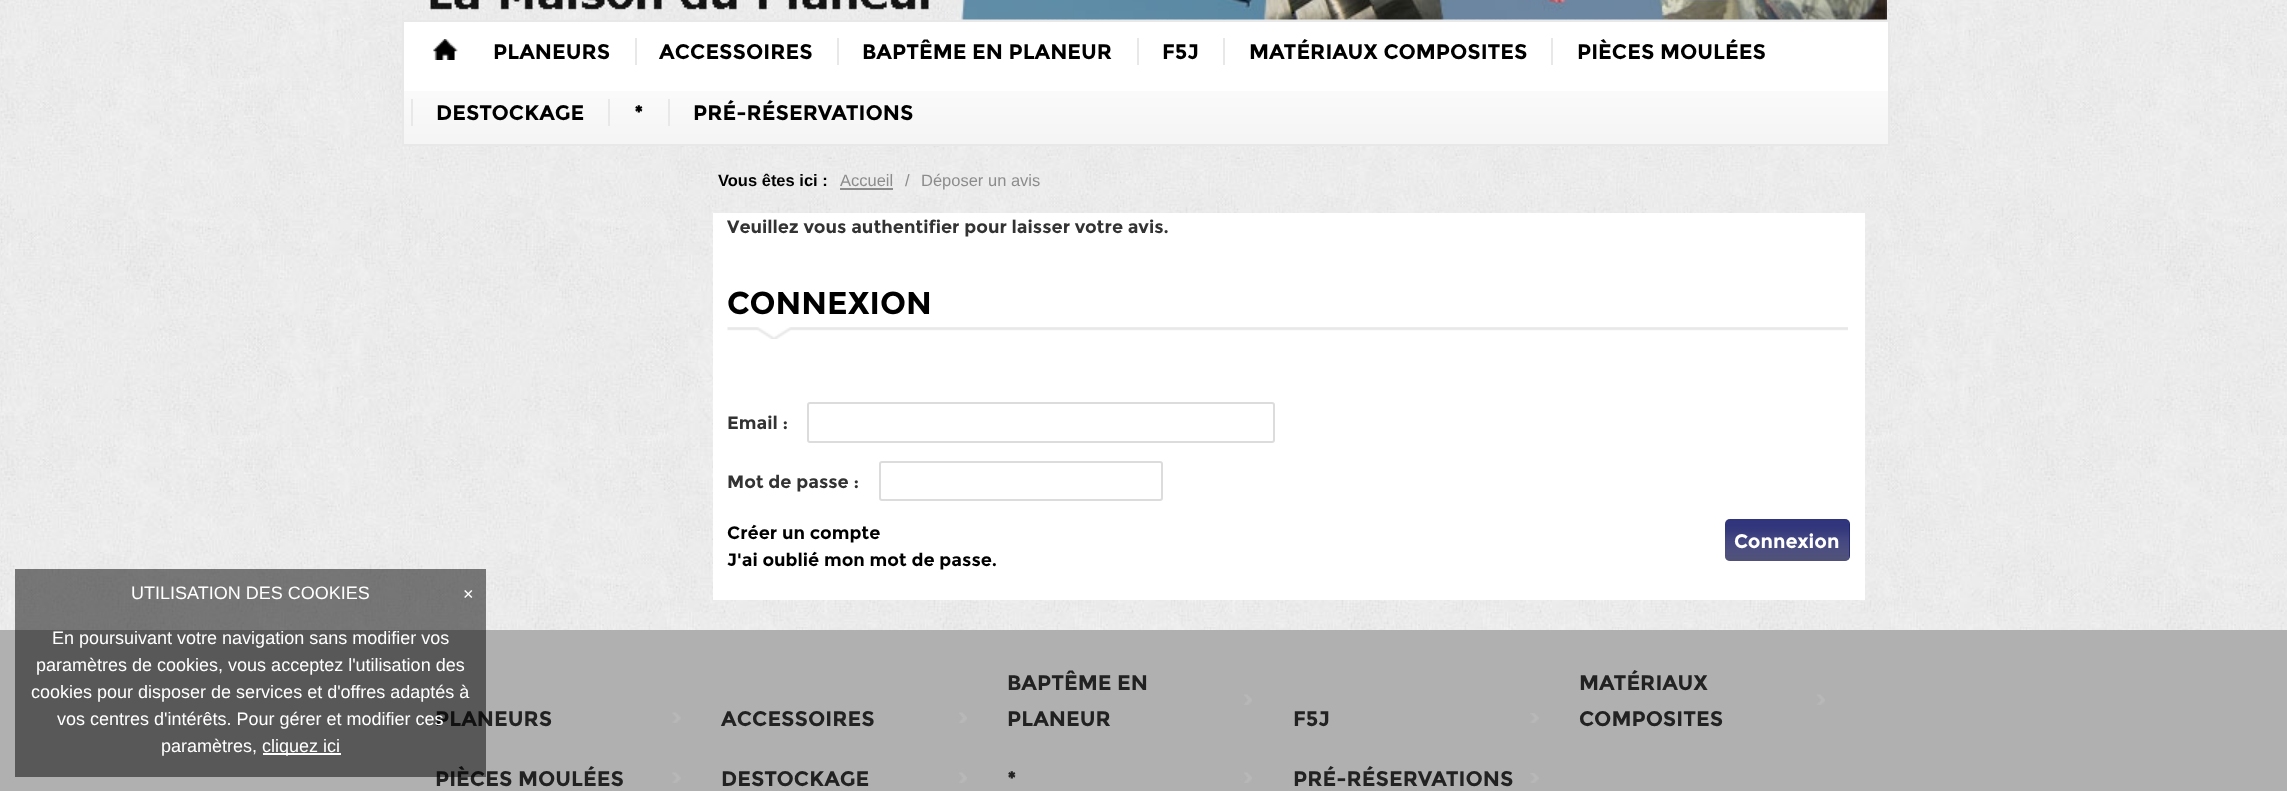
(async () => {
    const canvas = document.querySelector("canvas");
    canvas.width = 2287;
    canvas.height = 791;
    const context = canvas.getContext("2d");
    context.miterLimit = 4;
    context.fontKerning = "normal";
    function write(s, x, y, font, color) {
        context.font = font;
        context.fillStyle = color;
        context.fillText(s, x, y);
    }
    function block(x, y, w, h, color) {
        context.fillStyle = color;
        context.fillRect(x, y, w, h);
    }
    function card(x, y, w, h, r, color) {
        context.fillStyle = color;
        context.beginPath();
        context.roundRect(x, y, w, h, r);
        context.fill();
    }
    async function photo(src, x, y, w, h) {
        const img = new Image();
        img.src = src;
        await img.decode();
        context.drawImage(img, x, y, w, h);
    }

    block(0, 0, 2287, 791, "rgb(255, 255, 255)");
    await photo("media/1.png", 0, 0, 2287, 630);
    await photo("media/2.png", 402, 0, 1485, 20);
    block(404, 22, 1484, 69, "rgb(255, 255, 255)");
    await photo("media/3.png", 404, 91, 1484, 53);
    context.strokeStyle = "rgb(232, 232, 232)";
    context.lineWidth = 2;
    context.strokeRect(403, 21, 1486, 124);
    await photo("media/4.png", 433, 39, 25, 21);
    write("PLANEURS", 493, 59, "bold 21px Montserrat", "rgb(0, 0, 0)");
    write("ACCESSOIRES", 659, 59, "bold 21px Montserrat", "rgb(0, 0, 0)");
    block(635, 38, 2, 27, "rgb(232, 232, 232)");
    write("BAPTÊME EN PLANEUR", 862, 59, "bold 21px Montserrat", "rgb(0, 0, 0)");
    block(837, 38, 2, 27, "rgb(232, 232, 232)");
    write("F5J", 1162, 59, "bold 21px Montserrat", "rgb(0, 0, 0)");
    block(1137, 38, 2, 27, "rgb(232, 232, 232)");
    write("MATÉRIAUX COMPOSITES", 1249, 59, "bold 21px Montserrat", "rgb(0, 0, 0)");
    block(1223, 38, 2, 27, "rgb(232, 232, 232)");
    write("PIÈCES MOULÉES", 1577, 59, "bold 21px Montserrat", "rgb(0, 0, 0)");
    block(1551, 38, 2, 27, "rgb(232, 232, 232)");
    write("DESTOCKAGE", 436, 120, "bold 21px Montserrat", "rgb(0, 0, 0)");
    block(411, 99, 2, 27, "rgb(232, 232, 232)");
    write("*", 634, 120, "bold 21px Montserrat", "rgb(0, 0, 0)");
    block(608, 99, 2, 27, "rgb(232, 232, 232)");
    write("PRÉ-RÉSERVATIONS", 693, 120, "bold 21px Montserrat", "rgb(0, 0, 0)");
    block(668, 99, 2, 27, "rgb(232, 232, 232)");
    write("Vous êtes ici :", 718, 186, "bold 16.5px Liberation Sans", "rgb(0, 0, 0)");
    write("Accueil", 840, 186, "16.5px Liberation Sans", "rgb(140, 140, 140)");
    block(840, 188, 53, 2, "rgb(140, 140, 140)");
    write("/", 905, 186, "16.5px Liberation Sans", "rgb(140, 140, 140)");
    write("Déposer un avis", 921, 186, "16.5px Liberation Sans", "rgb(140, 140, 140)");
    block(713, 213, 1152, 387, "rgb(255, 255, 255)");
    write("Veuillez vous authentifier pour laisser votre avis.", 727, 233, "bold 18px Montserrat", "rgb(51, 51, 51)");
    await photo("media/5.png", 727, 327, 1121, 12);
    write("CONNEXION", 727, 314, "bold 31.5px Montserrat", "rgb(0, 0, 0)");
    write("Email :", 727, 429, "bold 18px Montserrat", "rgb(51, 51, 51)");
    context.beginPath();
    context.roundRect(808, 403, 466, 39, 2);
    context.strokeStyle = "rgb(220, 220, 220)";
    context.stroke();
    write("Mot de passe :", 727, 488, "bold 18px Montserrat", "rgb(51, 51, 51)");
    context.beginPath();
    context.roundRect(880, 462, 282, 38, 2);
    context.stroke();
    write("Créer un compte", 727, 539, "bold 18px Montserrat", "rgb(0, 0, 0)");
    card(1725, 519, 125, 42, 5, "rgb(25, 30, 115)");
    await photo("media/6.png", 1725, 519, 125, 42);
    write("Connexion", 1734, 548, "bold 19.5px Montserrat", "rgb(255, 255, 255)");
    write("J'ai oublié mon mot de passe.", 727, 566, "bold 18px Montserrat", "rgb(0, 0, 0)");
    block(0, 630, 2287, 161, "rgb(176, 176, 176)");
    write("PLANEURS", 435, 726, "bold 21px Montserrat", "rgb(34, 34, 34)");
    write("PIÈCES MOULÉES", 435, 786, "bold 21px Montserrat", "rgb(34, 34, 34)");
    block(15, 569, 471, 208, "rgba(0, 0, 0, 0.5)");
    write("UTILISATION DES COOKIES", 131, 599, "18px Liberation Sans", "rgb(255, 255, 255)");
    write("×", 463, 600, "18px Liberation Sans", "rgb(255, 255, 255)");
    write("En poursuivant votre navigation sans modifier vos", 52, 644, "18px Liberation Sans", "rgb(255, 255, 255)");
    write("paramètres de cookies, vous acceptez l'utilisation des", 36, 671, "18px Liberation Sans", "rgb(255, 255, 255)");
    write("cookies pour disposer de services et d'offres adaptés à", 31, 698, "18px Liberation Sans", "rgb(255, 255, 255)");
    write("vos centres d'intérêts. Pour gérer et modifier ces", 57, 725, "18px Liberation Sans", "rgb(255, 255, 255)");
    write("paramètres,", 161, 752, "18px Liberation Sans", "rgb(255, 255, 255)");
    block(263, 753, 78, 2, "rgb(255, 255, 255)");
    write("cliquez ici", 262, 752, "18px Liberation Sans", "rgb(255, 255, 255)");
    await photo("media/7.png", 672, 712, 9, 11);
    await photo("media/8.png", 959, 712, 8, 11);
    write("ACCESSOIRES", 721, 726, "bold 21px Montserrat", "rgb(34, 34, 34)");
    await photo("media/9.png", 1244, 694, 8, 11);
    write("BAPTÊME EN", 1007, 690, "bold 21px Montserrat", "rgb(34, 34, 34)");
    write("PLANEUR", 1007, 726, "bold 21px Montserrat", "rgb(34, 34, 34)");
    await photo("media/10.png", 1530, 713, 9, 10);
    write("F5J", 1293, 726, "bold 21px Montserrat", "rgb(34, 34, 34)");
    await photo("media/9.png", 1817, 694, 8, 11);
    write("MATÉRIAUX", 1579, 690, "bold 21px Montserrat", "rgb(34, 34, 34)");
    write("COMPOSITES", 1579, 726, "bold 21px Montserrat", "rgb(34, 34, 34)");
    await photo("media/7.png", 672, 772, 9, 11);
    await photo("media/8.png", 959, 772, 8, 11);
    write("DESTOCKAGE", 721, 786, "bold 21px Montserrat", "rgb(34, 34, 34)");
    await photo("media/9.png", 1244, 772, 8, 11);
    write("*", 1007, 786, "bold 21px Montserrat", "rgb(34, 34, 34)");
    await photo("media/10.png", 1530, 773, 9, 10);
    write("PRÉ-RÉSERVATIONS", 1293, 786, "bold 21px Montserrat", "rgb(34, 34, 34)");
})();
